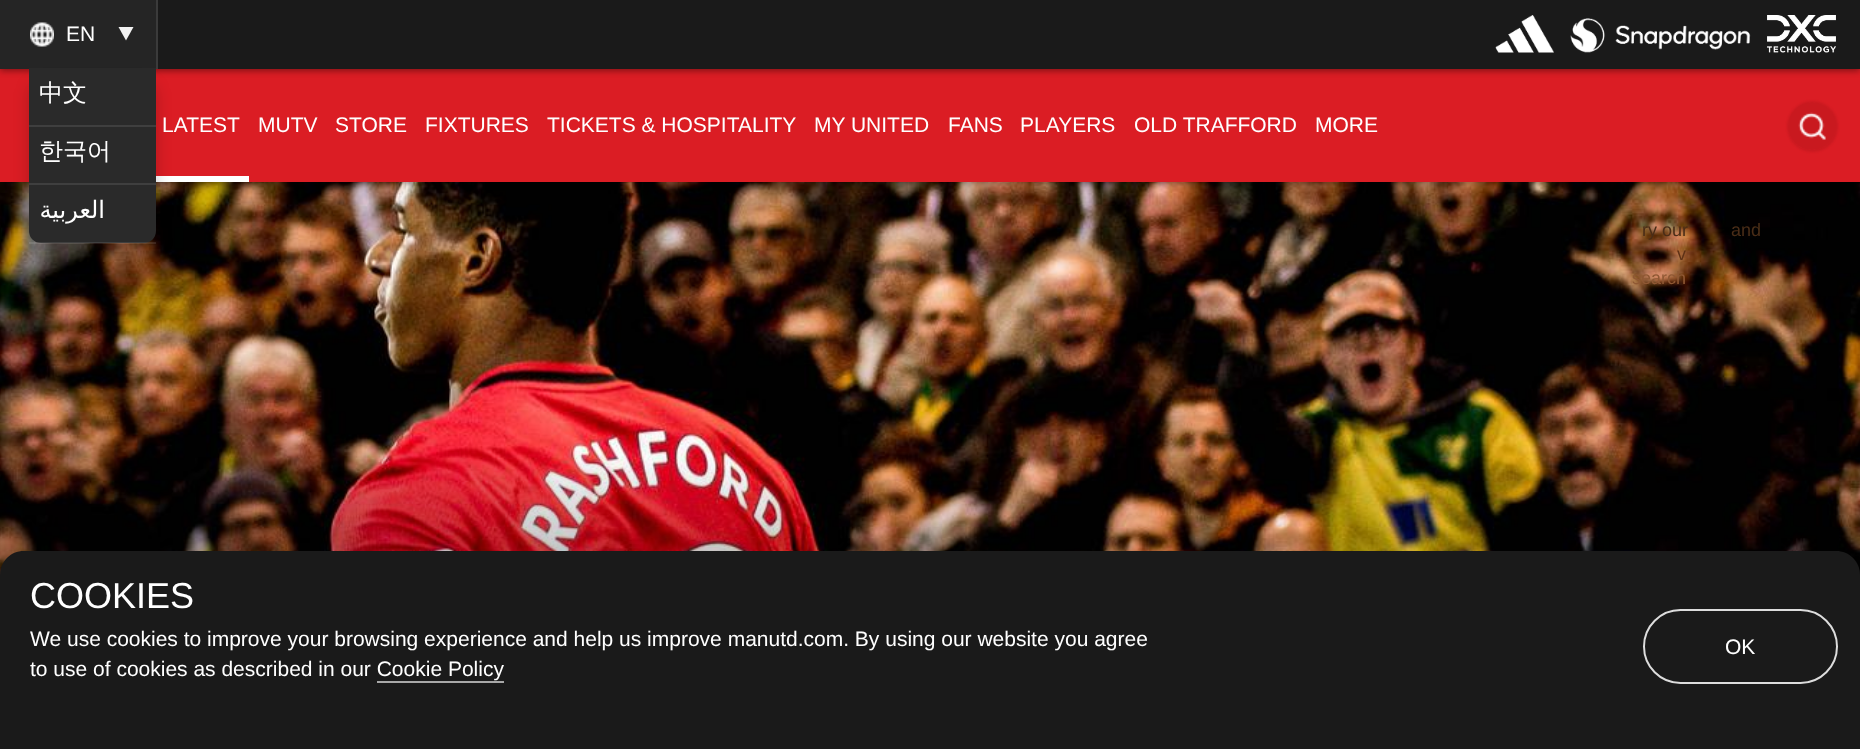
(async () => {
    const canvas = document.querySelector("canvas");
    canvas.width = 1860;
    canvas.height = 749;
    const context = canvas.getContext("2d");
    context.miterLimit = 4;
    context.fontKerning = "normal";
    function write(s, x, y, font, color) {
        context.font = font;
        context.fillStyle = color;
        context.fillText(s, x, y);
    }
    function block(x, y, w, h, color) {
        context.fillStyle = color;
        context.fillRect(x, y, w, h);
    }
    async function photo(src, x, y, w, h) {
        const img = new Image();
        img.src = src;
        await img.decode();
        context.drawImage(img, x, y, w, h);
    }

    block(0, 0, 1860, 749, "rgb(255, 255, 255)");
    await photo("media/6.png", 0, 182, 1860, 393);
    context.fillStyle = "rgba(0, 0, 0, 0.4)";
    context.filter = "blur(3px)";
    context.beginPath();
    context.rect(0, 71, 1860, 112);
    context.fill();
    context.filter = "none";
    block(0, 69, 1860, 113, "rgb(219, 29, 36)");
    context.fillStyle = "rgba(0, 0, 0, 0.4)";
    context.filter = "blur(3px)";
    context.beginPath();
    context.rect(0, 2, 1860, 69);
    context.fill();
    context.filter = "none";
    block(158, 0, 1702, 69, "rgb(26, 26, 26)");
    block(0, 0, 156, 69, "rgb(37, 37, 37)");
    block(156, 0, 2, 69, "rgb(59, 59, 59)");
    await photo("media/1.png", 30, 22, 24, 25);
    write("EN", 66, 41, "21px Liberation Sans", "rgb(255, 255, 255)");
    context.fillStyle = "rgb(242, 242, 242)";
    context.beginPath();
    context.moveTo(118.5, 27);
    context.lineTo(133.5, 27);
    context.lineTo(126, 40.5);
    context.closePath();
    context.fill();
    block(153, 176, 96, 6, "rgb(255, 255, 255)");
    context.fillStyle = "rgba(0, 0, 0, 0.2)";
    context.filter = "blur(7.5px)";
    context.beginPath();
    context.roundRect(29, 83, 127, 175, 12);
    context.fill();
    context.filter = "none";
    context.fillStyle = "rgb(42, 42, 42)";
    context.beginPath();
    context.roundRect(29, 68, 127, 175, [0, 0, 12, 12]);
    context.fill();
    block(29, 125, 127, 2, "rgb(63, 63, 63)");
    write("中文", 39, 101, "500 24px WenQuanYi Zen Hei", "rgb(255, 255, 255)");
    block(29, 183, 127, 2, "rgb(63, 63, 63)");
    write("한국어", 39, 159, "500 24px WenQuanYi Zen Hei", "rgb(255, 255, 255)");
    block(29, 242, 127, 2, "rgba(255, 255, 255, 0.1)");
    context.direction = "rtl";
    write("العربية", 105, 218, "24px DejaVu Sans", "rgb(255, 255, 255)");
    await photo("media/2.png", 1495, 15, 59, 38);
    await photo("media/3.png", 1570, 18, 181, 35);
    await photo("media/4.png", 1767, 15, 69, 38);
    context.direction = "ltr";
    write("LATEST", 162, 132, "21px Liberation Sans", "rgb(255, 255, 255)");
    write("MUTV", 258, 132, "21px Liberation Sans", "rgb(255, 255, 255)");
    write("STORE", 335, 132, "21px Liberation Sans", "rgb(255, 255, 255)");
    write("FIXTURES", 425, 132, "21px Liberation Sans", "rgb(255, 255, 255)");
    write("TICKETS & HOSPITALITY", 547, 132, "21px Liberation Sans", "rgb(255, 255, 255)");
    write("MY UNITED", 814, 132, "21px Liberation Sans", "rgb(255, 255, 255)");
    write("FANS", 948, 132, "21px Liberation Sans", "rgb(255, 255, 255)");
    write("PLAYERS", 1020, 132, "21px Liberation Sans", "rgb(255, 255, 255)");
    write("OLD TRAFFORD", 1134, 132, "21px Liberation Sans", "rgb(255, 255, 255)");
    write("MORE", 1315, 132, "21px Liberation Sans", "rgb(255, 255, 255)");
    context.save();
    context.beginPath();
    context.moveTo(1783, 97);
    context.lineTo(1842, 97);
    context.lineTo(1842, 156);
    context.lineTo(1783, 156);
    context.closePath();
    context.moveTo(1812, 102);
    context.bezierCurveTo(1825.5, 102, 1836, 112.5, 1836, 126);
    context.bezierCurveTo(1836, 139.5, 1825.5, 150, 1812, 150);
    context.bezierCurveTo(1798.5, 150, 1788, 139.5, 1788, 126);
    context.bezierCurveTo(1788, 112.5, 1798.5, 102, 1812, 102);
    context.closePath();
    context.clip("evenodd");
    context.fillStyle = "rgba(78, 3, 3, 0.12)";
    context.filter = "blur(1px)";
    context.beginPath();
    context.roundRect(1787, 101, 51, 51, 25.5);
    context.fill();
    context.filter = "none";
    context.restore();
    context.fillStyle = "rgba(78, 3, 3, 0.12)";
    context.beginPath();
    context.arc(1812, 126, 24, 0, Math.PI * 2);
    context.fill();
    await photo("media/5.png", 1798, 112, 28, 28);
    write("ry our", 1642, 236, "18px Liberation Sans", "rgb(74, 45, 23)");
    write("and", 1731, 236, "18px Liberation Sans", "rgb(74, 45, 23)");
    write("v", 1677, 260, "18px Liberation Sans", "rgb(94, 50, 23)");
    write("search", 1632, 284, "18px Liberation Sans", "rgb(143, 88, 52)");
    context.fillStyle = "rgb(26, 26, 26)";
    context.beginPath();
    context.moveTo(24, 551);
    context.lineTo(1836, 551);
    context.bezierCurveTo(1849.5, 551, 1860, 561.5, 1860, 575);
    context.lineTo(1860, 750);
    context.lineTo(0, 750);
    context.lineTo(0, 575);
    context.bezierCurveTo(0, 561.5, 10.5, 551, 24, 551);
    context.closePath();
    context.fill();
    write("COOKIES", 30, 608, "36px Liberation Sans", "rgb(255, 255, 255)");
    write("We use cookies to improve your browsing experience and help us improve manutd.com. By using our website you agree", 30, 646, "21px Liberation Sans", "rgb(255, 255, 255)");
    write("to use of cookies as described in our Cookie Policy", 30, 676, "21px Liberation Sans", "rgb(255, 255, 255)");
    block(377, 681, 127, 2, "rgb(168, 168, 168)");
    context.beginPath();
    context.roundRect(1644, 610, 193, 73, 36.5);
    context.strokeStyle = "rgb(221, 221, 221)";
    context.lineWidth = 2;
    context.stroke();
    write("OK", 1725, 654, "21px Liberation Sans", "rgb(255, 255, 255)");
})();
